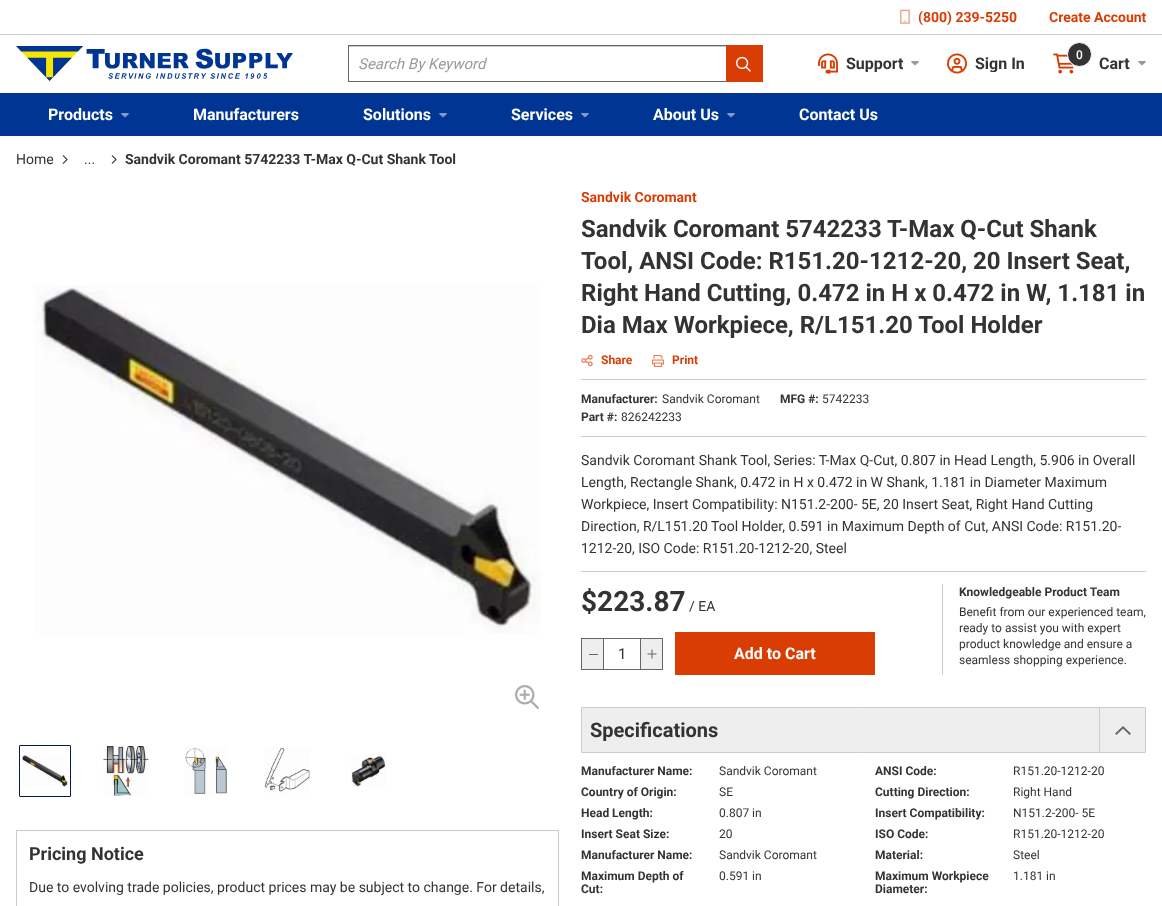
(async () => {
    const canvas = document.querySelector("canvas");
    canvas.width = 1162;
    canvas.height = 906;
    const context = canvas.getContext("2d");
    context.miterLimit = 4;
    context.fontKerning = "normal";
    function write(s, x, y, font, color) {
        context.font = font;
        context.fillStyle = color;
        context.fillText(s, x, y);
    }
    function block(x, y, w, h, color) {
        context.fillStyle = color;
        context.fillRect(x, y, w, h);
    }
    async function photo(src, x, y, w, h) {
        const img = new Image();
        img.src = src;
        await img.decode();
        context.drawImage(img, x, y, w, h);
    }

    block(0, 0, 1162, 906, "rgb(255, 255, 255)");
    block(0, 34, 1162, 1, "rgb(204, 204, 204)");
    await photo("media/1.png", 900, 9, 10, 15);
    write("(800) 239-5250", 918, 22, "bold 14px Roboto", "rgb(217, 61, 4)");
    write("Create Account", 1049, 22, "bold 14px Roboto", "rgb(217, 61, 4)");
    await photo("media/2.png", 16, 46, 277, 35);
    block(349, 46, 377, 1, "rgb(204, 204, 204)");
    context.strokeStyle = "rgb(102, 102, 102)";
    context.strokeRect(348.5, 45.5, 414, 36);
    write("Search By Keyword", 358, 69, "italic 15px Roboto", "rgb(153, 153, 153)");
    block(726, 45, 37, 37, "rgb(217, 61, 4)");
    await photo("media/3.png", 736, 56, 15, 16);
    await photo("media/4.png", 818, 53, 20, 21);
    context.save();
    context.beginPath();
    context.rect(846, 55, 57, 17);
    context.clip();
    write("Support", 846, 69, "bold 16px Roboto", "rgb(51, 51, 51)");
    context.restore();
    await photo("media/5.png", 911, 61, 8, 5);
    await photo("media/6.png", 947, 53, 20, 21);
    context.save();
    context.beginPath();
    context.rect(975, 55, 50, 17);
    context.clip();
    write("Sign In", 975, 69, "bold 16px Roboto", "rgb(51, 51, 51)");
    context.restore();
    await photo("media/7.png", 1053, 53, 21, 21);
    context.fillStyle = "rgb(51, 51, 51)";
    context.beginPath();
    context.arc(1079.5, 54.5, 12, 0, Math.PI * 2);
    context.fill();
    context.strokeStyle = "rgb(255, 255, 255)";
    context.stroke();
    write("0", 1076, 59, "500 12px Roboto", "rgb(255, 255, 255)");
    write("Cart", 1099, 69, "bold 16px Roboto", "rgb(51, 51, 51)");
    await photo("media/5.png", 1138, 61, 8, 5);
    block(0, 93, 1162, 43, "rgb(0, 53, 148)");
    write("Products", 48, 120, "bold 16px Roboto", "rgb(255, 255, 255)");
    await photo("media/8.png", 121, 113, 8, 5);
    write("Manufacturers", 193, 120, "bold 16px Roboto", "rgb(255, 255, 255)");
    write("Solutions", 363, 120, "bold 16px Roboto", "rgb(255, 255, 255)");
    await photo("media/8.png", 439, 113, 8, 5);
    write("Services", 511, 120, "bold 16px Roboto", "rgb(255, 255, 255)");
    await photo("media/8.png", 581, 113, 8, 5);
    write("About Us", 653, 120, "bold 16px Roboto", "rgb(255, 255, 255)");
    await photo("media/8.png", 727, 113, 8, 5);
    write("Contact Us", 799, 120, "bold 16px Roboto", "rgb(255, 255, 255)");
    write("Home", 16, 164, "14px Roboto", "rgb(51, 51, 51)");
    await photo("media/9.png", 62, 155, 6, 9);
    write("...", 84, 164, "14px Roboto", "rgb(51, 51, 51)");
    await photo("media/9.png", 111, 155, 6, 9);
    write("Sandvik Coromant 5742233 T-Max Q-Cut Shank Tool", 125, 164, "bold 14px Roboto", "rgb(51, 51, 51)");
    await photo("media/10.png", 34, 285, 507, 349);
    await photo("media/11.png", 515, 685, 24, 24);
    context.beginPath();
    context.roundRect(19.5, 745.5, 51, 51, 0.5);
    context.strokeStyle = "rgb(0, 27, 81)";
    context.stroke();
    await photo("media/12.png", 22, 755, 46, 33);
    await photo("media/13.png", 103, 746, 46, 50);
    await photo("media/14.png", 185, 747, 43, 48);
    await photo("media/15.png", 264, 747, 46, 46);
    await photo("media/16.png", 351, 754, 35, 33);
    context.strokeStyle = "rgb(204, 204, 204)";
    context.strokeRect(16.5, 830.5, 542, 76);
    write("Pricing Notice", 29, 860, "bold 18px Roboto", "rgb(51, 51, 51)");
    write("Due to evolving trade policies, product prices may be subject to change. For details,", 29, 892, "14px Roboto", "rgb(51, 51, 51)");
    write("Sandvik Coromant", 581, 202, "bold 14px Roboto", "rgb(217, 61, 4)");
    write("Sandvik Coromant 5742233 T-Max Q-Cut Shank", 581, 237, "bold 24px Roboto", "rgb(51, 51, 51)");
    write("Tool, ANSI Code: R151.20-1212-20, 20 Insert Seat,", 581, 269, "bold 24px Roboto", "rgb(51, 51, 51)");
    write("Right Hand Cutting, 0.472 in H x 0.472 in W, 1.181 in", 581, 301, "bold 24px Roboto", "rgb(51, 51, 51)");
    write("Dia Max Workpiece, R/L151.20 Tool Holder", 581, 333, "bold 24px Roboto", "rgb(51, 51, 51)");
    await photo("media/17.png", 581, 354, 12, 13);
    write("Share", 601, 364, "bold 12px Roboto", "rgb(217, 61, 4)");
    await photo("media/18.png", 652, 355, 12, 12);
    write("Print", 672, 364, "bold 12px Roboto", "rgb(217, 61, 4)");
    block(581, 379, 565, 1, "rgb(204, 204, 204)");
    write("Manufacturer:", 581, 403, "bold 12px Roboto", "rgb(51, 51, 51)");
    write("Sandvik Coromant", 662, 403, "12px Roboto", "rgb(51, 51, 51)");
    write("Part #:", 581, 421, "bold 12px Roboto", "rgb(51, 51, 51)");
    write("826242233", 621, 421, "12px Roboto", "rgb(51, 51, 51)");
    write("MFG #:", 780, 403, "bold 12px Roboto", "rgb(51, 51, 51)");
    write("5742233", 822, 403, "12px Roboto", "rgb(51, 51, 51)");
    block(581, 436, 565, 1, "rgb(204, 204, 204)");
    write("Sandvik Coromant Shank Tool, Series: T-Max Q-Cut, 0.807 in Head Length, 5.906 in Overall", 581, 465, "14px Roboto", "rgb(51, 51, 51)");
    write("Length, Rectangle Shank, 0.472 in H x 0.472 in W Shank, 1.181 in Diameter Maximum", 581, 487, "14px Roboto", "rgb(51, 51, 51)");
    write("Workpiece, Insert Compatibility: N151.2-200- 5E, 20 Insert Seat, Right Hand Cutting", 581, 509, "14px Roboto", "rgb(51, 51, 51)");
    write("Direction, R/L151.20 Tool Holder, 0.591 in Maximum Depth of Cut, ANSI Code: R151.20-", 581, 531, "14px Roboto", "rgb(51, 51, 51)");
    write("1212-20, ISO Code: R151.20-1212-20, Steel", 581, 553, "14px Roboto", "rgb(51, 51, 51)");
    block(581, 571, 565, 1, "rgb(204, 204, 204)");
    write("$223.87", 581, 611, "bold 28px Roboto", "rgb(51, 51, 51)");
    write("/ EA", 689, 611, "14px Roboto", "rgb(51, 51, 51)");
    context.strokeStyle = "rgb(102, 102, 102)";
    context.strokeRect(581.5, 638.5, 81, 31);
    block(582, 639, 21, 30, "rgb(238, 238, 238)");
    block(603, 639, 1, 30, "rgb(102, 102, 102)");
    block(589, 654, 9, 1, "rgb(102, 102, 102)");
    write("1", 618, 659, "15px Roboto", "rgb(51, 51, 51)");
    block(641, 639, 21, 30, "rgb(238, 238, 238)");
    block(640, 639, 1, 30, "rgb(102, 102, 102)");
    await photo("media/19.png", 647, 649, 10, 10);
    block(675, 632, 200, 43, "rgb(217, 61, 4)");
    write("Add to Cart", 734, 659, "bold 16px Roboto", "rgb(255, 255, 255)");
    block(942, 584, 1, 91, "rgb(204, 204, 204)");
    write("Knowledgeable Product Team", 959, 596, "bold 12px Roboto", "rgb(51, 51, 51)");
    write("Benefit from our experienced team,", 959, 616, "12px Roboto", "rgb(51, 51, 51)");
    write("ready to assist you with expert", 959, 632, "12px Roboto", "rgb(51, 51, 51)");
    write("product knowledge and ensure a", 959, 648, "12px Roboto", "rgb(51, 51, 51)");
    write("seamless shopping experience.", 959, 664, "12px Roboto", "rgb(51, 51, 51)");
    context.fillStyle = "rgb(238, 238, 238)";
    context.beginPath();
    context.rect(581.5, 707.5, 564, 45);
    context.fill();
    context.strokeStyle = "rgb(204, 204, 204)";
    context.stroke();
    write("Specifications", 590, 737, "bold 20px Roboto", "rgb(51, 51, 51)");
    block(1099, 708, 1, 44, "rgb(204, 204, 204)");
    await photo("media/20.png", 1115, 726, 16, 9);
    write("Manufacturer Name:", 581, 775, "bold 12px Roboto", "rgb(51, 51, 51)");
    write("Sandvik Coromant", 719, 775, "12px Roboto", "rgb(51, 51, 51)");
    write("ANSI Code:", 875, 775, "bold 12px Roboto", "rgb(51, 51, 51)");
    write("R151.20-1212-20", 1013, 775, "12px Roboto", "rgb(51, 51, 51)");
    write("Country of Origin:", 581, 796, "bold 12px Roboto", "rgb(51, 51, 51)");
    write("SE", 719, 796, "12px Roboto", "rgb(51, 51, 51)");
    write("Cutting Direction:", 875, 796, "bold 12px Roboto", "rgb(51, 51, 51)");
    write("Right Hand", 1013, 796, "12px Roboto", "rgb(51, 51, 51)");
    write("Head Length:", 581, 817, "bold 12px Roboto", "rgb(51, 51, 51)");
    write("0.807 in", 719, 817, "12px Roboto", "rgb(51, 51, 51)");
    write("Insert Compatibility:", 875, 817, "bold 12px Roboto", "rgb(51, 51, 51)");
    write("N151.2-200- 5E", 1013, 817, "12px Roboto", "rgb(51, 51, 51)");
    write("Insert Seat Size:", 581, 838, "bold 12px Roboto", "rgb(51, 51, 51)");
    write("20", 719, 838, "12px Roboto", "rgb(51, 51, 51)");
    write("ISO Code:", 875, 838, "bold 12px Roboto", "rgb(51, 51, 51)");
    write("R151.20-1212-20", 1013, 838, "12px Roboto", "rgb(51, 51, 51)");
    write("Manufacturer Name:", 581, 859, "bold 12px Roboto", "rgb(51, 51, 51)");
    write("Sandvik Coromant", 719, 859, "12px Roboto", "rgb(51, 51, 51)");
    write("Material:", 875, 859, "bold 12px Roboto", "rgb(51, 51, 51)");
    write("Steel", 1013, 859, "12px Roboto", "rgb(51, 51, 51)");
    write("Maximum Depth of", 581, 880, "bold 12px Roboto", "rgb(51, 51, 51)");
    write("Cut:", 581, 893, "bold 12px Roboto", "rgb(51, 51, 51)");
    write("0.591 in", 719, 880, "12px Roboto", "rgb(51, 51, 51)");
    write("Maximum Workpiece", 875, 880, "bold 12px Roboto", "rgb(51, 51, 51)");
    write("Diameter:", 875, 893, "bold 12px Roboto", "rgb(51, 51, 51)");
    write("1.181 in", 1013, 880, "12px Roboto", "rgb(51, 51, 51)");
})();
